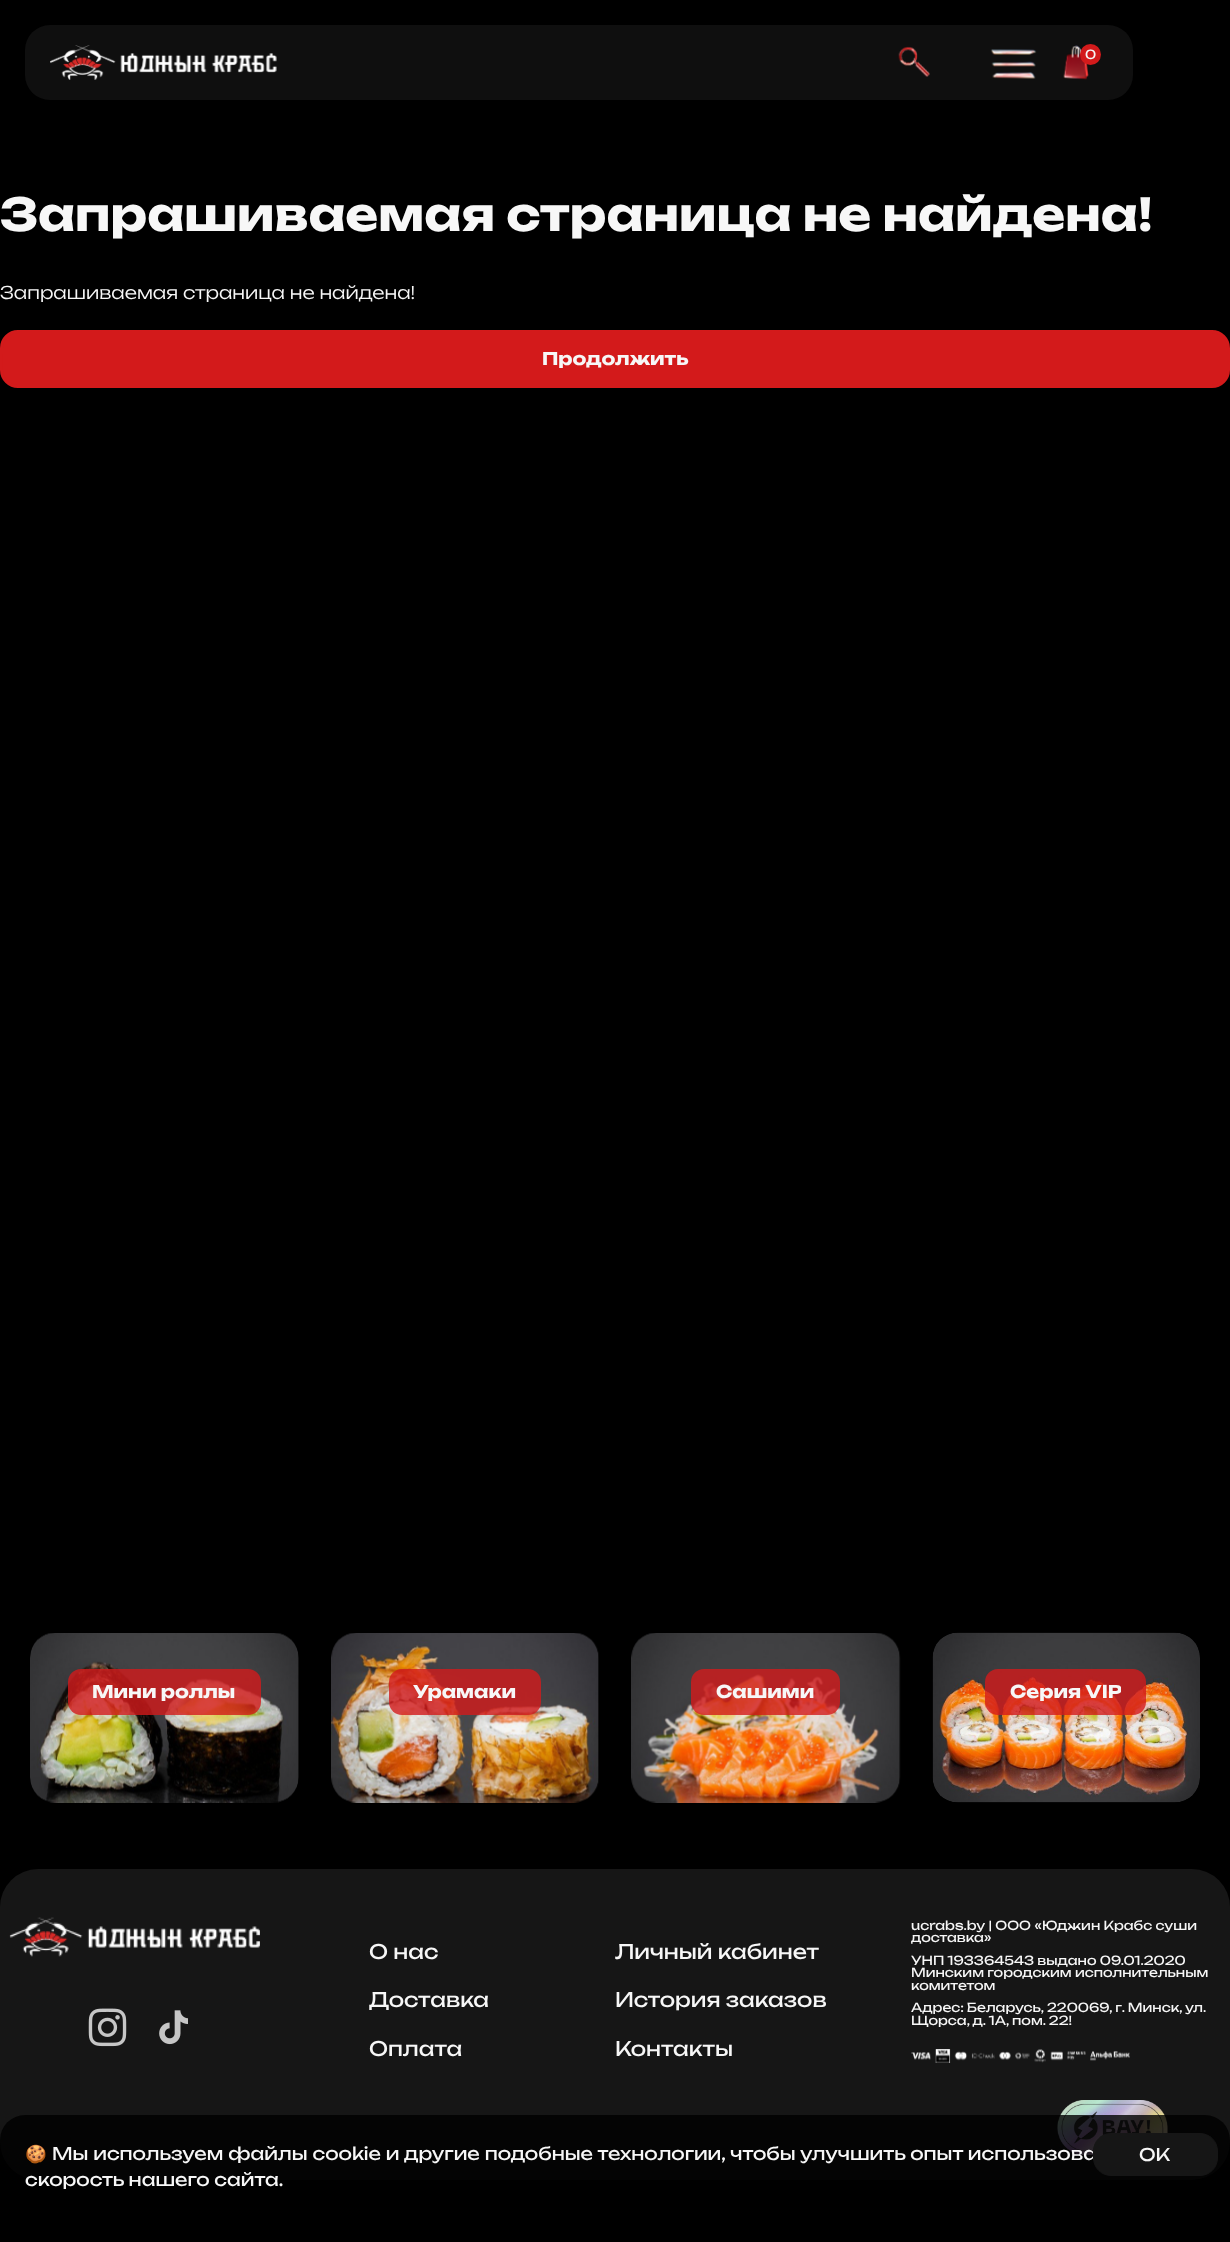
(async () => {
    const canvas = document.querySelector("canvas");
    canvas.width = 1230;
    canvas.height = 2242;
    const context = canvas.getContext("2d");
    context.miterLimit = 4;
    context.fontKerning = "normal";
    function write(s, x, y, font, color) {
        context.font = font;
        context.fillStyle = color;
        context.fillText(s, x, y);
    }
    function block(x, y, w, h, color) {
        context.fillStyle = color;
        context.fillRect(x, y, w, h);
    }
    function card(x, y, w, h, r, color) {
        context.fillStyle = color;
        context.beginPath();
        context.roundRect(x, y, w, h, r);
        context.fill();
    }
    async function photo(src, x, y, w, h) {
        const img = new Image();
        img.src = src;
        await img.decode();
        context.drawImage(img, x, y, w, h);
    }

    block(0, 0, 1230, 2242, "rgb(0, 0, 0)");
    card(25, 25, 1108, 75, 25, "rgb(15, 15, 15)");
    await photo("media/1.png", 50, 45, 227, 35);
    await photo("media/2.png", 898, 46, 32, 31);
    await photo("media/3.png", 990, 49, 47, 30);
    await photo("media/4.png", 1063, 45, 26, 35);
    context.fillStyle = "rgb(211, 26, 27)";
    context.beginPath();
    context.arc(1090.5, 54.5, 10.5, 0, Math.PI * 2);
    context.fill();
    write("0", 1085, 59, "12.5px Unbounded", "rgb(247, 247, 247)");
    write("Запрашиваемая страница не найдена!", 0, 231, "bold 45px Unbounded", "rgb(247, 247, 247)");
    write("Запрашиваемая страница не найдена!", 0, 299, "300 17.5px Unbounded", "rgb(247, 247, 247)");
    context.fillStyle = "rgb(211, 26, 27)";
    context.beginPath();
    context.roundRect(1.5, 331.5, 1227, 55, 16.5);
    context.fill();
    context.strokeStyle = "rgb(211, 26, 27)";
    context.lineWidth = 3;
    context.stroke();
    write("Продолжить", 542, 365, "bold 17.5px Unbounded", "rgb(247, 247, 247)");
    await photo("media/5.png", 30, 1633, 269, 170);
    card(68, 1669, 193, 46, 13, "rgba(211, 26, 27, 0.8)");
    write("Мини роллы", 92, 1698, "bold 17.5px Unbounded", "rgb(247, 247, 247)");
    await photo("media/6.png", 331, 1633, 268, 170);
    card(389, 1669, 152, 46, 13, "rgba(211, 26, 27, 0.8)");
    write("Урамаки", 413, 1698, "bold 17.5px Unbounded", "rgb(247, 247, 247)");
    await photo("media/7.png", 631, 1633, 270, 170);
    card(691, 1669, 149, 46, 13, "rgba(211, 26, 27, 0.8)");
    write("Сашими", 716, 1698, "bold 17.5px Unbounded", "rgb(247, 247, 247)");
    await photo("media/8.png", 932, 1632, 268, 171);
    card(985, 1669, 161, 46, 13, "rgba(211, 26, 27, 0.8)");
    context.save();
    context.beginPath();
    context.rect(1010, 1679, 111, 26);
    context.clip();
    write("Серия VIP", 1010, 1698, "bold 17.5px Unbounded", "rgb(247, 247, 247)");
    context.restore();
    context.fillStyle = "rgb(22, 22, 22)";
    context.beginPath();
    context.roundRect(0, 1869, 369, 231, [38, 0, 0, 0]);
    context.fill();
    await photo("media/9.png", 9, 1917, 251, 40);
    await photo("media/10.png", 88, 2008, 39, 39);
    await photo("media/11.png", 159, 2010, 29, 35);
    block(369, 1869, 492, 231, "rgb(22, 22, 22)");
    write("О нас", 369, 1959, "20px Unbounded", "rgb(247, 247, 247)");
    write("Доставка", 369, 2007, "20px Unbounded", "rgb(247, 247, 247)");
    write("Оплата", 369, 2056, "20px Unbounded", "rgb(247, 247, 247)");
    write("Личный кабинет", 615, 1959, "20px Unbounded", "rgb(247, 247, 247)");
    write("История заказов", 615, 2007, "20px Unbounded", "rgb(247, 247, 247)");
    write("Контакты", 615, 2056, "20px Unbounded", "rgb(247, 247, 247)");
    context.fillStyle = "rgb(22, 22, 22)";
    context.beginPath();
    context.roundRect(861, 1869, 369, 231, [0, 38, 0, 0]);
    context.fill();
    write("ucrabs.by | ООО «Юджин Крабс суши", 911, 1930, "12.5px Unbounded", "rgb(247, 247, 247)");
    write("доставка»", 911, 1942, "12.5px Unbounded", "rgb(247, 247, 247)");
    write("УНП 193364543 выдано 09.01.2020", 911, 1965, "12.5px Unbounded", "rgb(247, 247, 247)");
    write("Минским городским исполнительным", 911, 1977, "12.5px Unbounded", "rgb(247, 247, 247)");
    write("комитетом", 911, 1990, "12.5px Unbounded", "rgb(247, 247, 247)");
    context.wordSpacing = "-0.5px";
    write("Адрес: Беларусь, 220069, г. Минск, ул.", 911, 2012, "12.5px Unbounded", "rgb(247, 247, 247)");
    write("Щорса, д. 1А, пом. 22!", 911, 2025, "12.5px Unbounded", "rgb(247, 247, 247)");
    await photo("media/12.png", 911, 2049, 219, 14);
    context.fillStyle = "rgb(22, 22, 22)";
    context.beginPath();
    context.roundRect(0, 2100, 308, 80, [0, 0, 0, 38]);
    context.fill();
    block(308, 2100, 615, 80, "rgb(22, 22, 22)");
    context.beginPath();
    context.roundRect(923, 2100, 307, 80, [0, 0, 38, 0]);
    context.fill();
    await photo("media/13.png", 1057, 2100, 111, 55);
    card(0, 2115, 1230, 103, 25, "rgba(0, 0, 0, 0.8)");
    context.wordSpacing = "0px";
    write("🍪", 25, 2160, "17.5px Noto Color Emoji", "rgb(247, 247, 247)");
    context.wordSpacing = "0.25px";
    write("Мы используем файлы cookie и другие подобные технологии, чтобы улучшить опыт использова", 52, 2160, "17.5px Unbounded", "rgb(247, 247, 247)");
    context.wordSpacing = "0px";
    write("скорость нашего сайта.", 25, 2186, "17.5px Unbounded", "rgb(247, 247, 247)");
    context.fillStyle = "rgb(22, 22, 22)";
    context.beginPath();
    context.roundRect(1093.5, 2133.5, 124, 42, 17.5);
    context.fill();
    context.strokeStyle = "rgb(22, 22, 22)";
    context.lineWidth = 1;
    context.stroke();
    write("OK", 1139, 2161, "17.5px Unbounded", "rgb(247, 247, 247)");
})();
